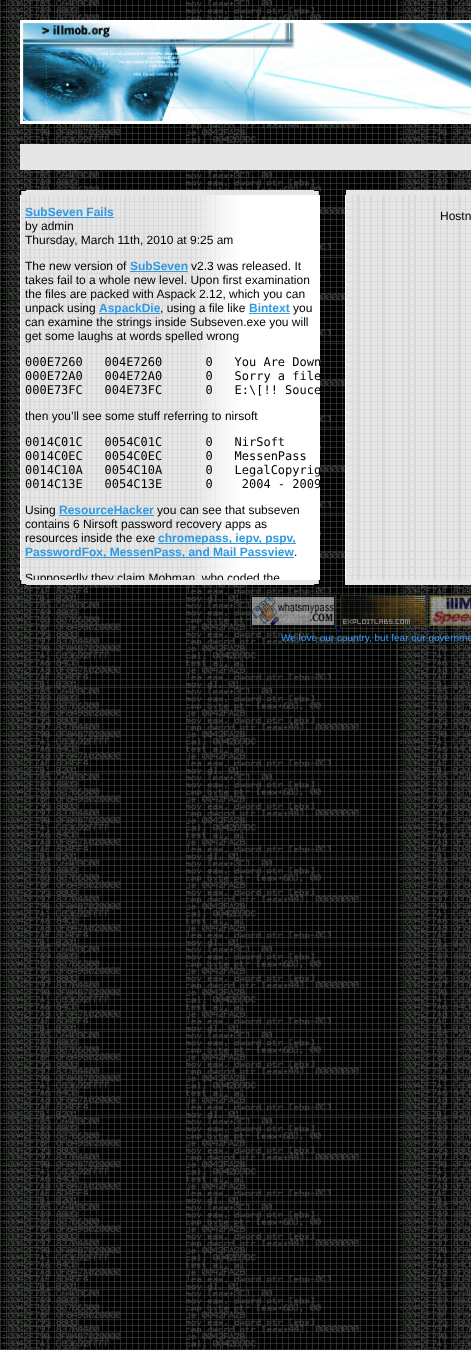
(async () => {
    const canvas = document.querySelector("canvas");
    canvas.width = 471;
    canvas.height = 1350;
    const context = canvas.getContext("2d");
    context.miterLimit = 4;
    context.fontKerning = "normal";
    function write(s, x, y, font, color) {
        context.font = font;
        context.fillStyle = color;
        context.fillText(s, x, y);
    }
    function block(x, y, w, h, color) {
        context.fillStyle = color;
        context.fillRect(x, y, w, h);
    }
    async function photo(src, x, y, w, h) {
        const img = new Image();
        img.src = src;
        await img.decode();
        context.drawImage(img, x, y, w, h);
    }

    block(0, 0, 471, 1350, "rgb(255, 255, 255)");
    await photo("media/1.png", 0, 0, 471, 1350);
    await photo("media/2.png", 20, 20, 451, 104);
    block(20, 144, 451, 26, "rgb(230, 230, 230)");
    await photo("media/3.png", 20, 190, 300, 5);
    await photo("media/4.png", 20, 195, 300, 385);
    write("SubSeven Fails", 25, 216, "bold 12px Liberation Sans", "rgb(51, 153, 223)");
    block(25, 217, 89, 1, "rgb(51, 153, 223)");
    write("by admin", 25, 230, "12px Liberation Sans", "rgb(0, 0, 0)");
    write("Thursday, March 11th, 2010 at 9:25 am", 25, 244, "12px Liberation Sans", "rgb(0, 0, 0)");
    write("The new version of", 25, 270, "12px Liberation Sans", "rgb(0, 0, 0)");
    write("SubSeven", 130, 270, "bold 12px Liberation Sans", "rgb(51, 153, 223)");
    block(130, 271, 58, 1, "rgb(51, 153, 223)");
    write("v2.3 was released. It", 191, 270, "12px Liberation Sans", "rgb(0, 0, 0)");
    write("takes fail to a whole new level. Upon first examination", 25, 284, "12px Liberation Sans", "rgb(0, 0, 0)");
    write("the files are packed with Aspack 2.12, which you can", 25, 298, "12px Liberation Sans", "rgb(0, 0, 0)");
    write("unpack using", 25, 312, "12px Liberation Sans", "rgb(0, 0, 0)");
    block(99, 313, 61, 1, "rgb(51, 153, 223)");
    write("AspackDie", 99, 312, "bold 12px Liberation Sans", "rgb(51, 153, 223)");
    write(", using a file like", 160, 312, "12px Liberation Sans", "rgb(0, 0, 0)");
    write("Bintext", 249, 312, "bold 12px Liberation Sans", "rgb(51, 153, 223)");
    block(249, 313, 41, 1, "rgb(51, 153, 223)");
    write("you", 293, 312, "12px Liberation Sans", "rgb(0, 0, 0)");
    write("can examine the strings inside Subseven.exe you will", 25, 326, "12px Liberation Sans", "rgb(0, 0, 0)");
    write("get some laughs at words spelled wrong", 25, 340, "12px Liberation Sans", "rgb(0, 0, 0)");
    context.save();
    context.beginPath();
    context.rect(20, 195, 300, 385);
    context.clip();
    write("000E7260   004E7260      0   You Are Down", 25, 366, "12px DejaVu Sans Mono", "rgb(0, 0, 0)");
    write("000E72A0   004E72A0      0   Sorry a file", 25, 380, "12px DejaVu Sans Mono", "rgb(0, 0, 0)");
    write("000E73FC   004E73FC      0   E:\\[!! Souce", 25, 394, "12px DejaVu Sans Mono", "rgb(0, 0, 0)");
    context.restore();
    write("then you’ll see some stuff referring to nirsoft", 25, 420, "12px Liberation Sans", "rgb(0, 0, 0)");
    write("0014C01C   0054C01C      0   NirSoft", 25, 446, "12px DejaVu Sans Mono", "rgb(0, 0, 0)");
    write("0014C0EC   0054C0EC      0   MessenPass", 25, 460, "12px DejaVu Sans Mono", "rgb(0, 0, 0)");
    context.save();
    context.beginPath();
    context.rect(20, 195, 300, 385);
    context.clip();
    write("0014C10A   0054C10A      0   LegalCopyrig", 25, 474, "12px DejaVu Sans Mono", "rgb(0, 0, 0)");
    write("0014C13E   0054C13E      0    2004 - 2009", 25, 488, "12px DejaVu Sans Mono", "rgb(0, 0, 0)");
    context.restore();
    write("Using", 25, 514, "12px Liberation Sans", "rgb(0, 0, 0)");
    write("ResourceHacker", 59, 514, "bold 12px Liberation Sans", "rgb(51, 153, 223)");
    block(59, 515, 95, 1, "rgb(51, 153, 223)");
    write("you can see that subseven", 157, 514, "12px Liberation Sans", "rgb(0, 0, 0)");
    write("contains 6 Nirsoft password recovery apps as", 25, 528, "12px Liberation Sans", "rgb(0, 0, 0)");
    write("resources inside the exe", 25, 542, "12px Liberation Sans", "rgb(0, 0, 0)");
    block(158, 543, 138, 1, "rgb(51, 153, 223)");
    write("chromepass, iepv, pspv,", 158, 542, "bold 12px Liberation Sans", "rgb(51, 153, 223)");
    block(25, 557, 269, 1, "rgb(51, 153, 223)");
    write("PasswordFox, MessenPass, and Mail Passview", 25, 556, "bold 12px Liberation Sans", "rgb(51, 153, 223)");
    write(".", 294, 556, "12px Liberation Sans", "rgb(0, 0, 0)");
    context.save();
    context.beginPath();
    context.rect(20, 195, 300, 385);
    context.clip();
    write("Supposedly they claim Mobman, who coded the", 25, 582, "12px Liberation Sans", "rgb(0, 0, 0)");
    context.restore();
    await photo("media/5.png", 20, 580, 300, 5);
    block(346, 190, 125, 5, "rgb(230, 230, 230)");
    await photo("media/6.png", 345, 195, 126, 385);
    write("Hostn", 440, 220, "12px Liberation Sans", "rgb(0, 0, 0)");
    block(345, 580, 126, 5, "rgb(230, 230, 230)");
    context.strokeStyle = "rgba(73, 85, 72, 0.5)";
    context.strokeRect(250.5, 595.5, 85, 33);
    context.strokeRect(340.5, 595.5, 85, 33);
    context.strokeRect(429.5, 595.5, 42, 33);
    await photo("media/7.png", 251, 596, 84, 30);
    await photo("media/8.png", 341, 596, 84, 30);
    await photo("media/9.png", 430, 596, 41, 30);
    block(336, 630, 4, 1, "rgb(0, 0, 238)");
    block(426, 630, 3, 1, "rgb(0, 0, 238)");
    write("We love our country, but fear our governme", 281, 641, "10px Liberation Sans", "rgb(51, 153, 255)");
})();
